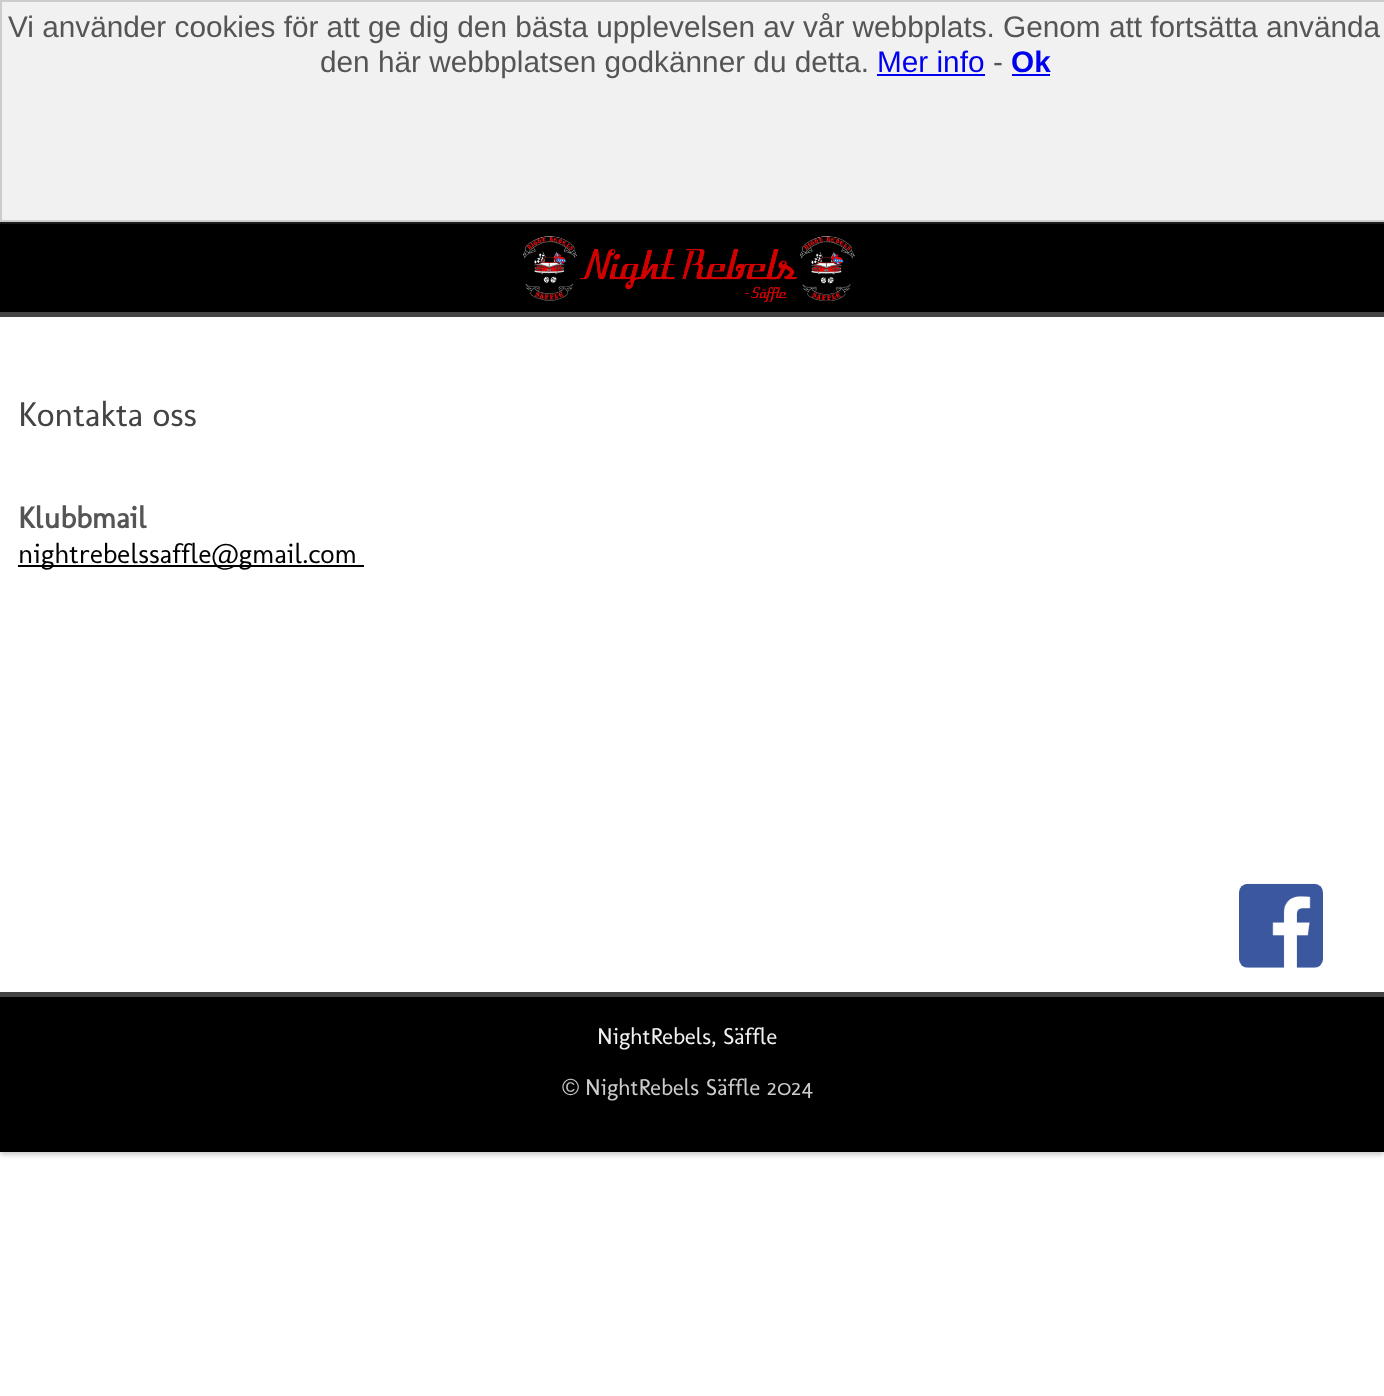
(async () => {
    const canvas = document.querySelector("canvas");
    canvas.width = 1384;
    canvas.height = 1396;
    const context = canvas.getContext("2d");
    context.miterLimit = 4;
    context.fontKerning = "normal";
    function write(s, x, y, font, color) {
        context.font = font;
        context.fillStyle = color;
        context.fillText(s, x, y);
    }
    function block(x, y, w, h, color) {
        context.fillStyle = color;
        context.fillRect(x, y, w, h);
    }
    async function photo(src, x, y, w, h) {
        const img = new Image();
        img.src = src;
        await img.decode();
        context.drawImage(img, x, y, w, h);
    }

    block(0, 0, 1384, 1396, "rgb(255, 255, 255)");
    context.fillStyle = "rgb(241, 241, 241)";
    context.beginPath();
    context.rect(1, 1, 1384, 220);
    context.fill();
    context.strokeStyle = "rgb(204, 204, 204)";
    context.lineWidth = 2;
    context.stroke();
    write("Vi använder cookies för att ge dig den bästa upplevelsen av vår webbplats. Genom att fortsätta använda", 8, 37, "29.75px Liberation Sans", "rgb(85, 85, 85)");
    write("den här webbplatsen godkänner du detta.", 320, 72, "29.75px Liberation Sans", "rgb(85, 85, 85)");
    write("Mer info", 877, 72, "29.75px Liberation Sans", "rgb(0, 0, 238)");
    block(877, 74, 108, 2, "rgb(0, 0, 238)");
    write("-", 993, 72, "29.75px Liberation Sans", "rgb(85, 85, 85)");
    write("Ok", 1011, 72, "bold 29.75px Liberation Sans", "rgb(0, 0, 238)");
    block(1012, 74, 38, 2, "rgb(0, 0, 238)");
    block(0, 222, 1384, 2, "rgb(26, 26, 26)");
    block(0, 224, 1384, 88, "rgb(0, 0, 0)");
    block(0, 312, 1384, 5, "rgb(68, 68, 68)");
    await photo("media/1.png", 523, 236, 332, 66);
    write("Kontakta oss", 18, 426, "35px Molengo", "rgb(68, 68, 68)");
    write("Klubbmail", 18, 528, "bold 30.5px Molengo", "rgb(85, 85, 85)");
    block(18, 565, 346, 2, "rgb(0, 0, 0)");
    write("nightrebelssaffle@gmail.com", 18, 563, "28px Molengo", "rgb(0, 0, 0)");
    await photo("media/2.png", 1239, 883, 84, 85);
    context.fillStyle = "rgba(0, 0, 0, 0.2)";
    context.filter = "blur(2.5px)";
    context.beginPath();
    context.rect(0, 996, 1384, 159);
    context.fill();
    context.filter = "none";
    block(0, 997, 1384, 155, "rgb(0, 0, 0)");
    block(0, 992, 1384, 5, "rgb(68, 68, 68)");
    write("NightRebels, Säffle", 597, 1044, "23.25px Molengo", "rgb(241, 241, 241)");
    write("©", 562, 1095, "23.25px Liberation Sans", "rgb(204, 204, 204)");
    write("NightRebels Säffle 2024", 585, 1095, "23.25px Molengo", "rgb(204, 204, 204)");
})();
